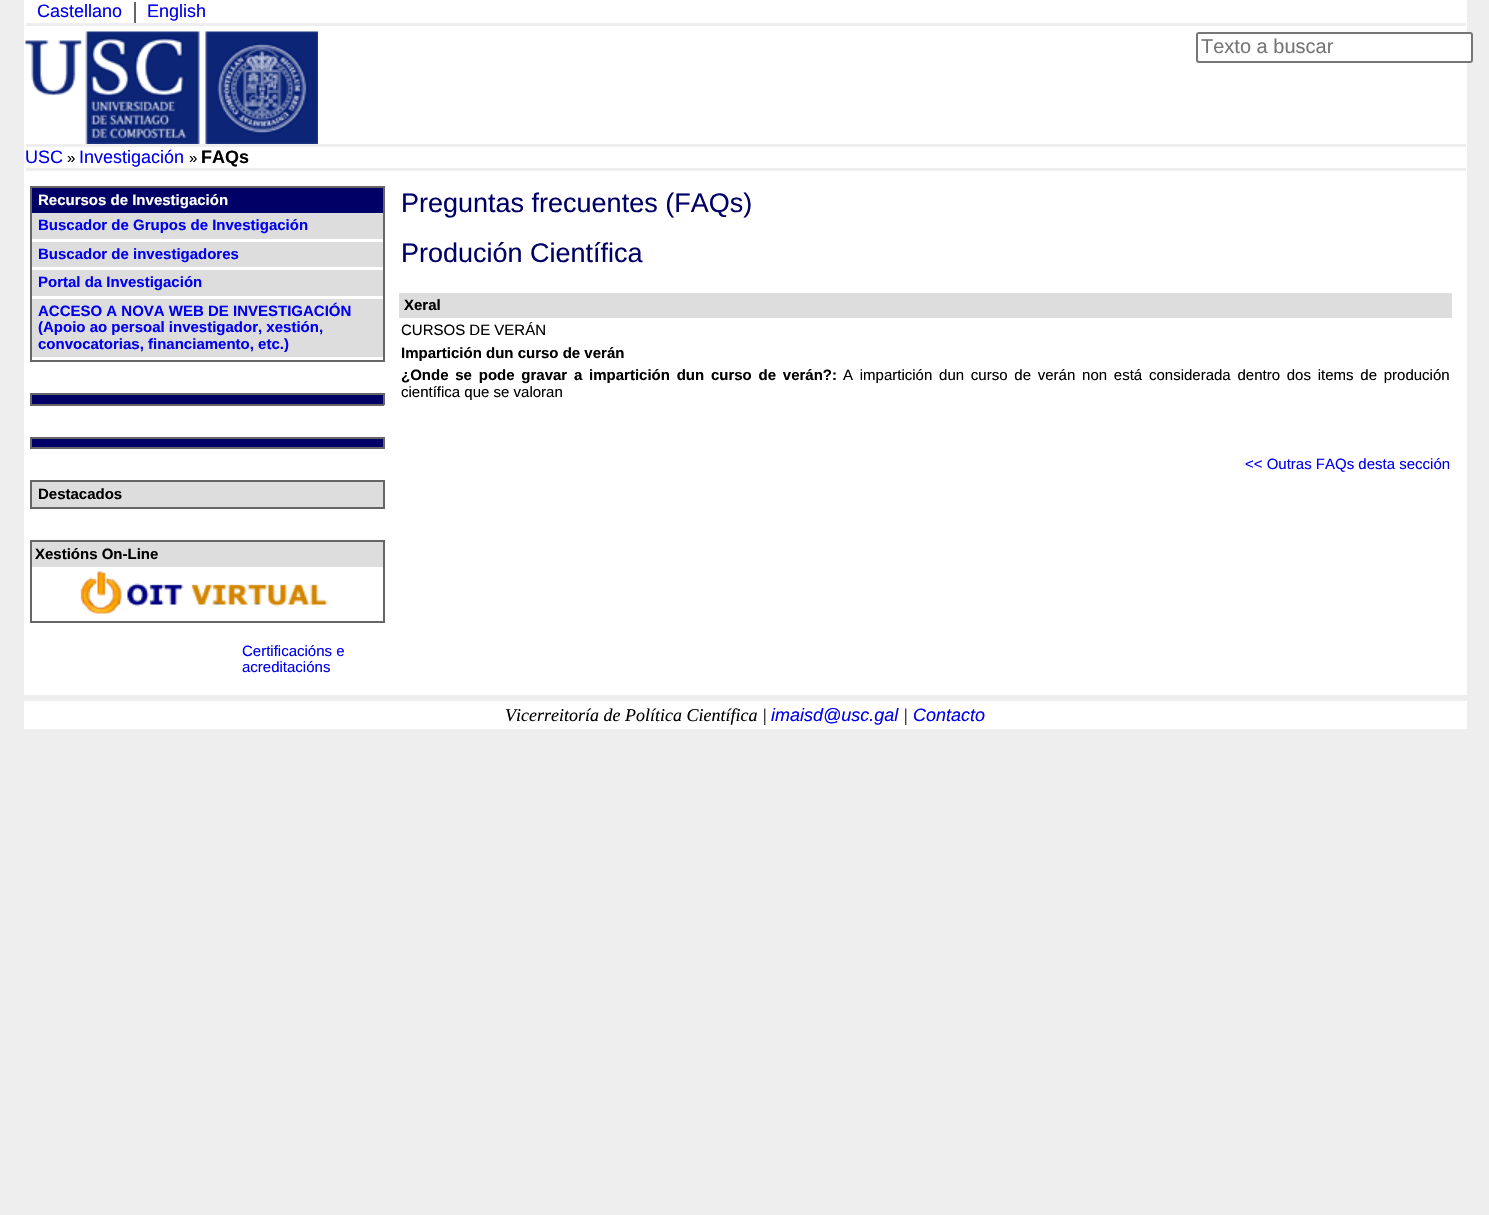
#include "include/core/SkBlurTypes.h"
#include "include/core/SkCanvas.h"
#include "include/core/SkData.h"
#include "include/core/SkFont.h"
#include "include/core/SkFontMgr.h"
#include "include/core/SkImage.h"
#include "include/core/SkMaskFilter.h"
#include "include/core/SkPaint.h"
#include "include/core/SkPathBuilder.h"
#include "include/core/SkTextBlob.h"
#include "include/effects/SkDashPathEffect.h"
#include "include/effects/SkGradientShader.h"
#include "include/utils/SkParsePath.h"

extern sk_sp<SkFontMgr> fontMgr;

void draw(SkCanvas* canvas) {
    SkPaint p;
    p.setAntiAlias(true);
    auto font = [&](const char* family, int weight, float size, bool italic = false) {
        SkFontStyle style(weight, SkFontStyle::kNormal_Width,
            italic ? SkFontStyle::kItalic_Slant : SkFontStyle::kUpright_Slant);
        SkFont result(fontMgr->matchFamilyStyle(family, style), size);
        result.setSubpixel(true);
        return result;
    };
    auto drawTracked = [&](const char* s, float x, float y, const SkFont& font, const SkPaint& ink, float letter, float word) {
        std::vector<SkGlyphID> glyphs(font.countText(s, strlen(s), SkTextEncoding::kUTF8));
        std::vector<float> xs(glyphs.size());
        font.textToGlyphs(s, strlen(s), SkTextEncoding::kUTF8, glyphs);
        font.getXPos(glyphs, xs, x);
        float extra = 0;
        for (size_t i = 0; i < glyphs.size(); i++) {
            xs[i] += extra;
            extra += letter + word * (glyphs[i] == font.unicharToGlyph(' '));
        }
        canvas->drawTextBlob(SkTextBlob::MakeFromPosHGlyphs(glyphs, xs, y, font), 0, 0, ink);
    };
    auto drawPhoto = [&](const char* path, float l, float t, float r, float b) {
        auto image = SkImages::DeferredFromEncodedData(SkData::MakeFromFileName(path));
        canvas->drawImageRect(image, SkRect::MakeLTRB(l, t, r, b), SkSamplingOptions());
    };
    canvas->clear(0xFFEEEEEE);
    p.setColor(0xFFFFFFFF);
    canvas->drawRect(SkRect::MakeLTRB(24, 0, 1467, 729), p);
    auto font1 = font("Liberation Sans", 400, 18);
    p.setColor(0xFF0000EE);
    canvas->drawString("Castellano", 37, 17, font1, p);
    p.setColor(0xFF666666);
    canvas->drawRect(SkRect::MakeLTRB(134, 2, 136, 23), p);
    p.setColor(0xFF0000EE);
    canvas->drawString("English", 147, 17, font1, p);
    p.setColor(0xFFEEEEEE);
    canvas->drawRect(SkRect::MakeLTRB(26, 23, 1466, 26), p);
    drawPhoto("media/1.png", 25, 31, 318, 144);
    p.setColor(0xFFFFFFFF);
    canvas->drawRoundRect(SkRect::MakeLTRB(1197, 33, 1472, 62), 2, 2, p);
    p.setStyle(SkPaint::kStroke_Style);
    p.setStrokeWidth(2);
    p.setColor(0xFF767676);
    canvas->drawRoundRect(SkRect::MakeLTRB(1197, 33, 1472, 62), 2, 2, p);
    auto font2 = font("Liberation Sans", 400, 20);
    p.setStyle(SkPaint::kFill_Style);
    p.setColor(0xFF757575);
    canvas->drawString("Texto a buscar", 1201, 53, font2, p);
    p.setColor(0xFFEEEEEE);
    canvas->drawRect(SkRect::MakeLTRB(26, 144, 1466, 147), p);
    p.setColor(0xFF0000EE);
    canvas->drawString("USC", 25, 163, font1, p);
    auto font3 = font("Liberation Sans", 400, 15);
    p.setColor(0xFF000000);
    canvas->drawString("»", 67, 163, font3, p);
    p.setColor(0xFF0000EE);
    canvas->drawString("Investigación", 79, 163, font1, p);
    p.setColor(0xFF000000);
    canvas->drawString("»", 189, 163, font3, p);
    auto font4 = font("Liberation Sans", 700, 18);
    canvas->drawString("FAQs", 201, 163, font4, p);
    {
        const struct { float l, t, r, b; SkColor color; } items[] = {
            {26, 168, 1466, 171, 0xFFEEEEEE},
            {30, 186, 384, 188, 0xFF666666},
            {383, 186, 385, 362, 0xFF666666},
            {30, 360, 384, 362, 0xFF666666},
            {30, 186, 32, 362, 0xFF666666},
            {32, 188, 383, 213, 0xFF000066},
        };
        for (auto [l, t, r, b, color] : items) {
            p.setColor(color);
            canvas->drawRect(SkRect::MakeLTRB(l, t, r, b), p);
        }
    }
    auto font5 = font("Liberation Sans", 700, 15);
    p.setColor(0xFFFFFFFF);
    canvas->drawString("Recursos de Investigación", 38, 205, font5, p);
    p.setColor(0xFFDDDDDD);
    canvas->drawRect(SkRect::MakeLTRB(32, 213, 383, 239), p);
    p.setColor(0xFF0000EE);
    canvas->drawString("Buscador de Grupos de Investigación", 38, 230, font5, p);
    p.setColor(0xFFDDDDDD);
    canvas->drawRect(SkRect::MakeLTRB(32, 242, 383, 267), p);
    p.setColor(0xFF0000EE);
    canvas->drawString("Buscador de investigadores", 38, 259, font5, p);
    p.setColor(0xFFDDDDDD);
    canvas->drawRect(SkRect::MakeLTRB(32, 270, 383, 296), p);
    p.setColor(0xFF0000EE);
    canvas->drawString("Portal da Investigación", 38, 287, font5, p);
    p.setColor(0xFFDDDDDD);
    canvas->drawRect(SkRect::MakeLTRB(32, 299, 383, 357), p);
    p.setColor(0xFF0000EE);
    {
        const struct { const char* s; float x, y; } items[] = {
            {"ACCESO A NOVA WEB DE INVESTIGACIÓN", 38, 316},
            {"(Apoio ao persoal investigador, xestión,", 38, 332},
            {"convocatorias, financiamento, etc.)", 38, 349},
        };
        for (auto [s, x, y] : items) {
            canvas->drawString(s, x, y, font5, p);
        }
    }
    {
        const struct { float l, t, r, b; SkColor color; } items[] = {
            {30, 393, 384, 395, 0xFF666666},
            {383, 393, 385, 405, 0xFF666666},
            {30, 404, 384, 406, 0xFF666666},
            {30, 393, 32, 405, 0xFF666666},
            {32, 395, 383, 404, 0xFF000066},
            {30, 437, 384, 439, 0xFF666666},
            {383, 437, 385, 449, 0xFF666666},
            {30, 447, 384, 449, 0xFF666666},
            {30, 437, 32, 449, 0xFF666666},
            {32, 439, 383, 447, 0xFF000066},
            {30, 480, 384, 482, 0xFF666666},
            {383, 480, 385, 509, 0xFF666666},
            {30, 507, 384, 509, 0xFF666666},
            {30, 480, 32, 509, 0xFF666666},
            {32, 482, 383, 507, 0xFFDDDDDD},
        };
        for (auto [l, t, r, b, color] : items) {
            p.setColor(color);
            canvas->drawRect(SkRect::MakeLTRB(l, t, r, b), p);
        }
    }
    p.setColor(0xFF000000);
    canvas->drawString("Destacados", 38, 499, font5, p);
    {
        const struct { float l, t, r, b; SkColor color; } items[] = {
            {30, 540, 384, 542, 0xFF666666},
            {383, 540, 385, 623, 0xFF666666},
            {30, 621, 384, 623, 0xFF666666},
            {30, 540, 32, 623, 0xFF666666},
            {32, 542, 383, 567, 0xFFDDDDDD},
        };
        for (auto [l, t, r, b, color] : items) {
            p.setColor(color);
            canvas->drawRect(SkRect::MakeLTRB(l, t, r, b), p);
        }
    }
    p.setColor(0xFF000000);
    canvas->drawString("Xestións On-Line", 35, 559, font5, p);
    drawPhoto("media/2.png", 80, 571, 328, 614);
    p.setColor(0xFF0000EE);
    canvas->drawString("Certificacións e", 242, 656, font3, p);
    canvas->drawString("acreditacións", 242, 672, font3, p);
    auto font6 = font("Liberation Sans", 400, 27);
    p.setColor(0xFF000066);
    canvas->drawString("Preguntas frecuentes (FAQs)", 401, 212, font6, p);
    canvas->drawString("Produción Científica", 401, 262, font6, p);
    p.setColor(0xFFDDDDDD);
    canvas->drawRect(SkRect::MakeLTRB(399, 293, 1452, 318), p);
    p.setColor(0xFF000000);
    canvas->drawString("Xeral", 404, 310, font5, p);
    canvas->drawString("CURSOS DE VERÁN", 401, 335, font3, p);
    canvas->drawString("Impartición dun curso de verán", 401, 358, font5, p);
    drawTracked("¿Onde se pode gravar a impartición dun curso de verán?:", 401, 380, font5, p, 0, 2.6f);
    drawTracked("A impartición dun curso de verán non está considerada dentro dos items de produción", 843, 380, font3, p, 0, 2.6f);
    canvas->drawString("científica que se valoran", 401, 397, font3, p);
    p.setColor(0xFF0000EE);
    canvas->drawString("<< Outras FAQs desta sección", 1245, 469, font3, p);
    p.setColor(0xFFEEEEEE);
    canvas->drawRect(SkRect::MakeLTRB(24, 695, 1467, 701), p);
    auto font7 = font("Liberation Serif", 400, 18, true);
    p.setColor(0xFF000000);
    canvas->drawString("Vicerreitoría de Política Científica |", 505, 721, font7, p);
    auto font8 = font("Liberation Sans", 400, 18, true);
    p.setColor(0xFF0000EE);
    canvas->drawString("imaisd@usc.gal", 771, 721, font8, p);
    p.setColor(0xFF000000);
    canvas->drawString("|", 903, 721, font7, p);
    p.setColor(0xFF0000EE);
    canvas->drawString("Contacto", 913, 721, font8, p);
}
